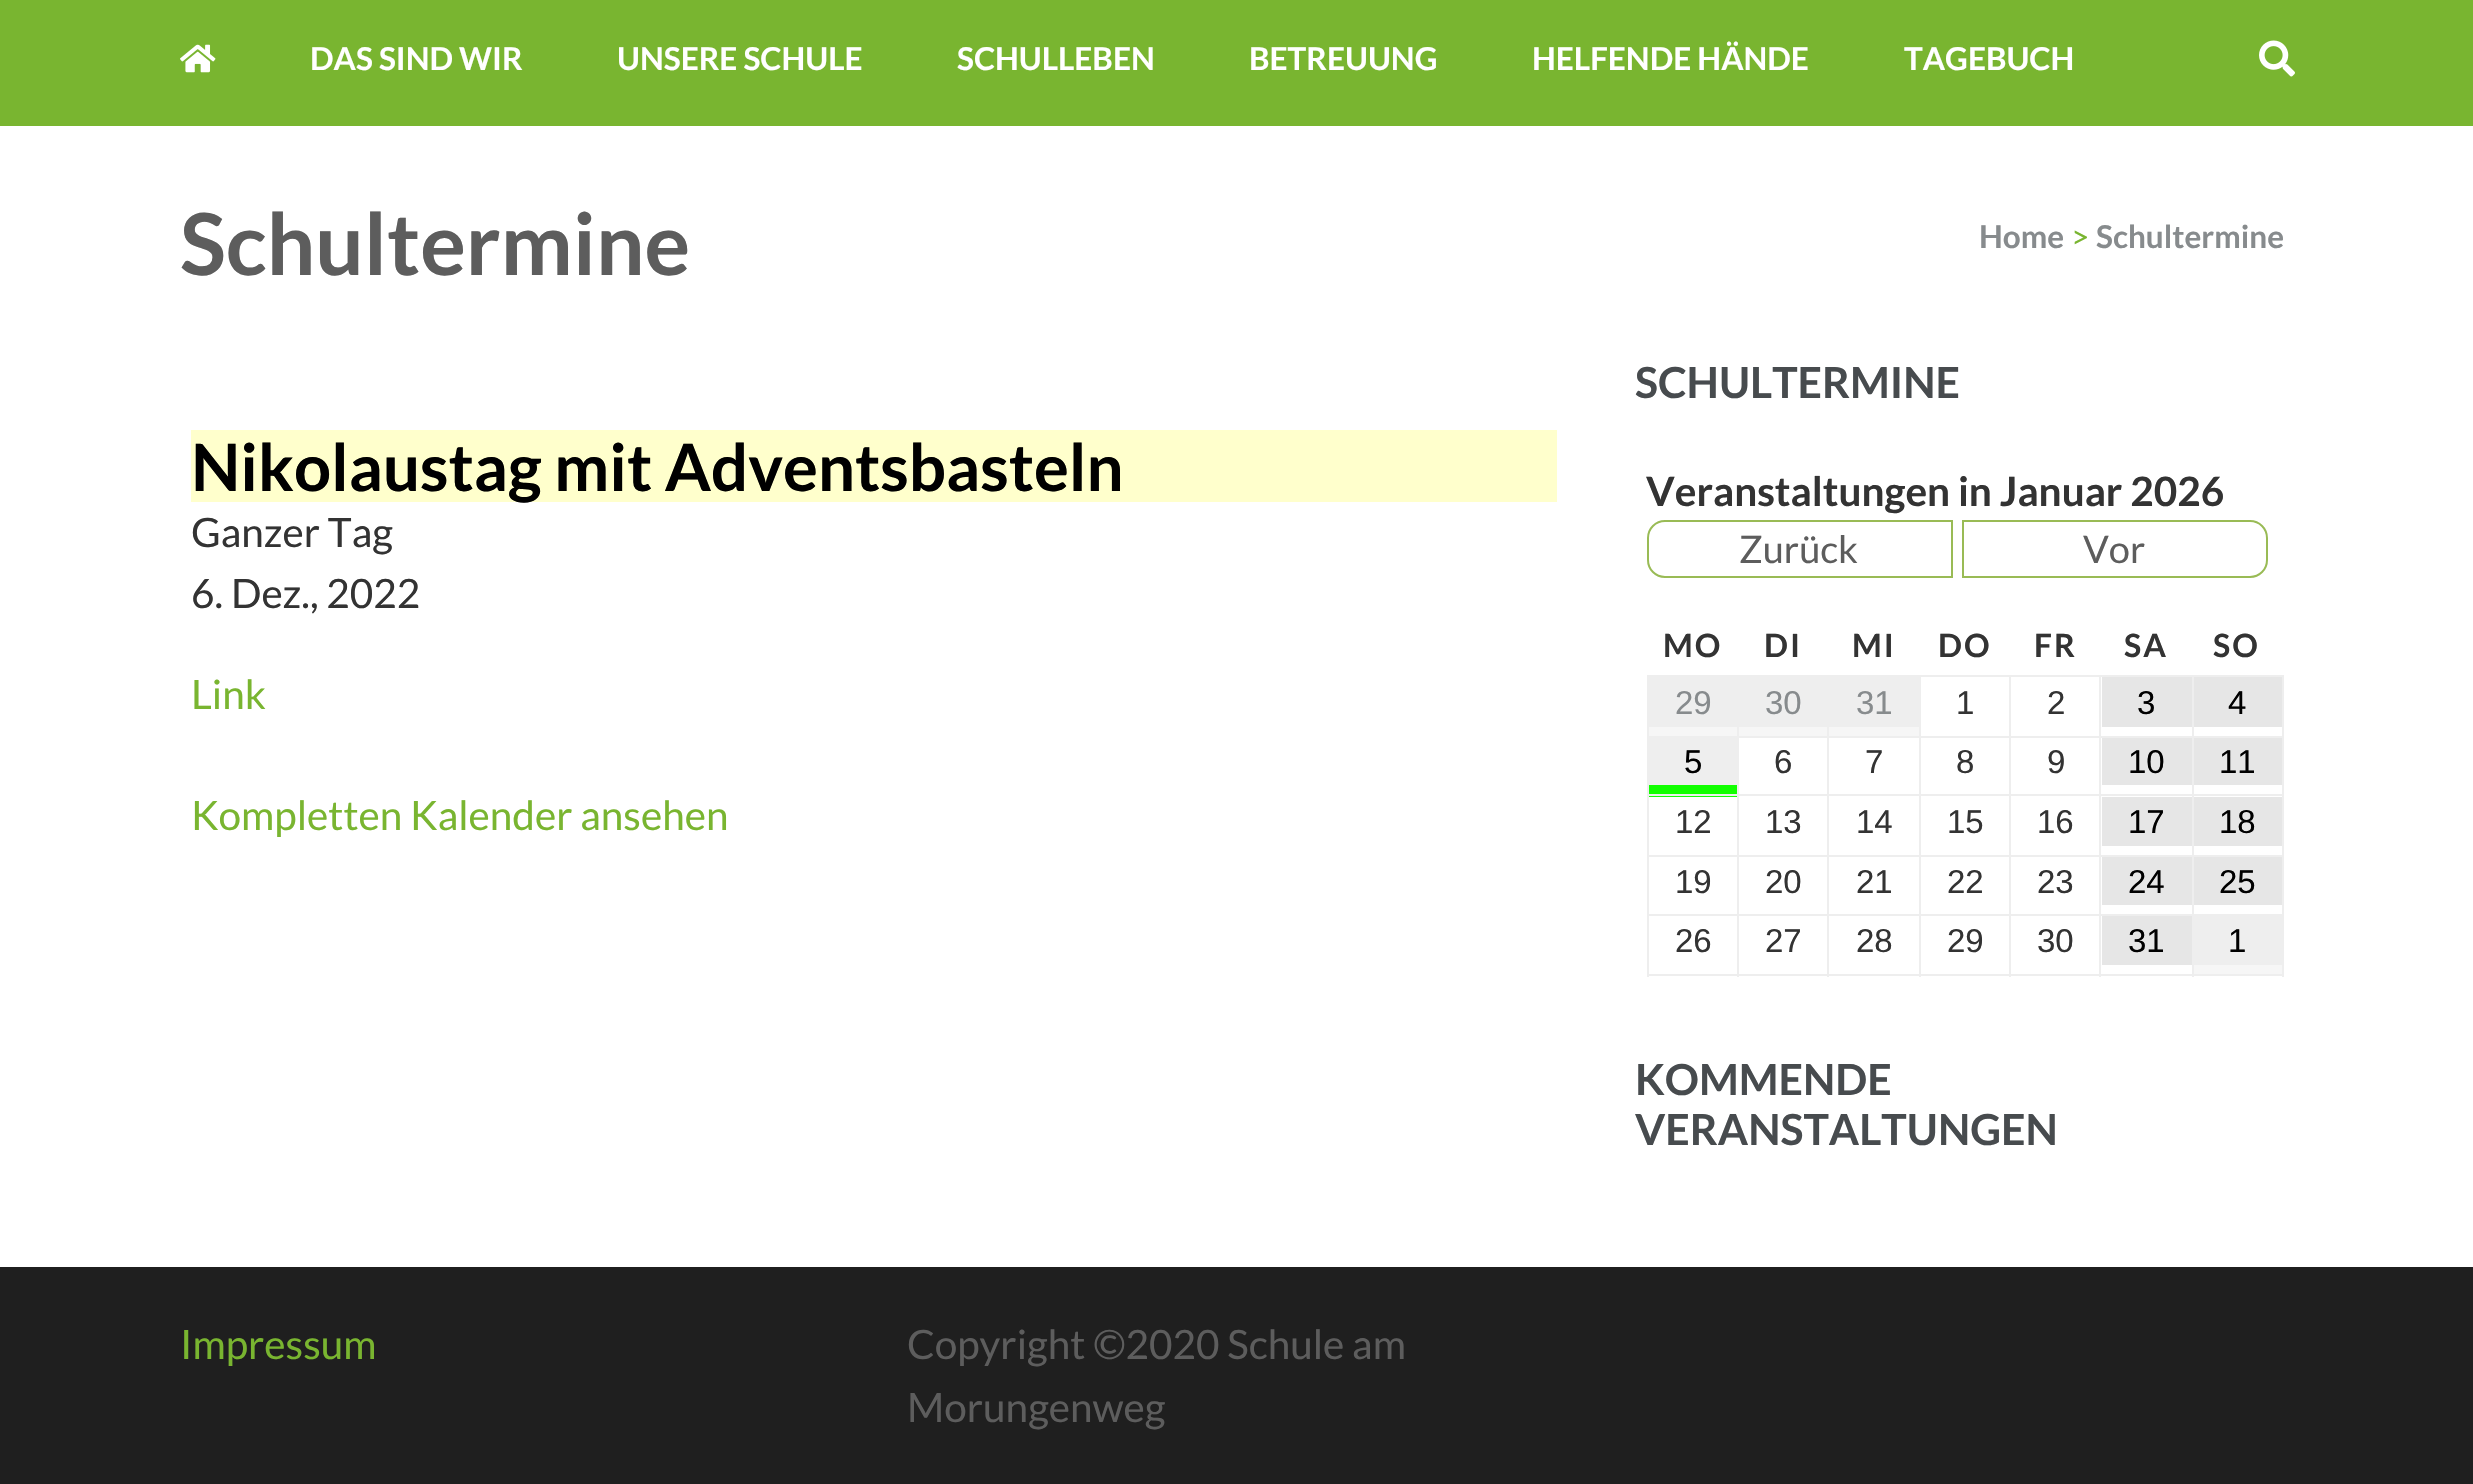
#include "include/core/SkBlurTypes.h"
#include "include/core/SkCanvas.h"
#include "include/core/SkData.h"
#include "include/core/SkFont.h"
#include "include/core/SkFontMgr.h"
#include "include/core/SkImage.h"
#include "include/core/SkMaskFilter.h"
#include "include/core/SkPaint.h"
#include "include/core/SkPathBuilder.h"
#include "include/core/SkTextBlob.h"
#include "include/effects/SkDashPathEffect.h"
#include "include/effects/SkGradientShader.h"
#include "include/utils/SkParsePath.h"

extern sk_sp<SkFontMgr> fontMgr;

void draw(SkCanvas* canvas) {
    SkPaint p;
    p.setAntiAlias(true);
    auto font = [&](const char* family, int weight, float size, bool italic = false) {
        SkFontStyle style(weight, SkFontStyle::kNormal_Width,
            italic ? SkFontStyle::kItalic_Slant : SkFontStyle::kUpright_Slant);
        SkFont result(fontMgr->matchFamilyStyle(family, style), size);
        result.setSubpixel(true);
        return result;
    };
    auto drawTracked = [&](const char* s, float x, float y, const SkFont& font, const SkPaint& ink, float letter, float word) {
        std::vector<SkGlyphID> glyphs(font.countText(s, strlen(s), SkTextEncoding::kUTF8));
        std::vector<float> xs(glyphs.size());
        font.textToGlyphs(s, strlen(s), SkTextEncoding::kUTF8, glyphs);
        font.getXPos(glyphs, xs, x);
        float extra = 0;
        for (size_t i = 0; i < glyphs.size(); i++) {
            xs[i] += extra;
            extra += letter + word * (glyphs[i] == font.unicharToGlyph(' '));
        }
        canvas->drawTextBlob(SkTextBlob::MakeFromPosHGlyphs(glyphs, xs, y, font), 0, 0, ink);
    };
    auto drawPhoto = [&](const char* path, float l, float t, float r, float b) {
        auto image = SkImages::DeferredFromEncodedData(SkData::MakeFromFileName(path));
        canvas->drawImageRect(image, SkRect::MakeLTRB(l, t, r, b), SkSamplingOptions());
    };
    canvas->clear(0xFFFFFFFF);
    p.setColor(0xFF79B530);
    canvas->drawRect(SkRect::MakeLTRB(0, 0, 2473, 126), p);
    drawPhoto("media/1.png", 180, 44, 216, 73);
    auto font1 = font("Lato", 700, 31.5f);
    p.setColor(0xFFFFFFFF);
    {
        const struct { const char* s; float x, y; } items[] = {
            {"DAS SIND WIR", 310, 70},
            {"UNSERE SCHULE", 617, 70},
            {"SCHULLEBEN", 957, 70},
            {"BETREUUNG", 1249, 70},
            {"HELFENDE HÄNDE", 1532, 70},
            {"TAGEBUCH", 1904, 70},
        };
        for (auto [s, x, y] : items) {
            canvas->drawString(s, x, y, font1, p);
        }
    }
    drawPhoto("media/2.png", 2259, 40, 2295, 77);
    auto font2 = font("Lato", 700, 85.5f);
    p.setColor(0xFF5D5D5D);
    canvas->drawString("Schultermine", 180, 275, font2, p);
    p.setColor(0xFF878B8D);
    canvas->drawString("Home", 1979, 248, font1, p);
    auto font3 = font("Lato", 400, 31.5f);
    p.setColor(0xFF79B530);
    canvas->drawString(">", 2071, 248, font3, p);
    p.setColor(0xFF878B8D);
    canvas->drawString("Schultermine", 2096, 248, font1, p);
    p.setColor(0xFFFFFFCC);
    canvas->drawRect(SkRect::MakeLTRB(191, 430, 1557, 502), p);
    auto font4 = font("Lato", 700, 65.25f);
    p.setColor(0xFF000000);
    canvas->drawString("Nikolaustag mit Adventsbasteln", 191, 491, font4, p);
    auto font5 = font("Lato", 400, 40.5f);
    p.setColor(0xFF333333);
    canvas->drawString("Ganzer Tag", 191, 547, font5, p);
    canvas->drawString("6. Dez., 2022", 191, 608, font5, p);
    p.setColor(0xFF79B530);
    canvas->drawString("Link", 191, 709, font5, p);
    canvas->drawString("Kompletten Kalender ansehen", 191, 830, font5, p);
    auto font6 = font("Lato", 700, 42.75f);
    p.setColor(0xFF474B4E);
    canvas->drawString("SCHULTERMINE", 1635, 398, font6, p);
    auto font7 = font("Lato", 700, 40.5f);
    p.setColor(0xFF333333);
    canvas->drawString("Veranstaltungen in Januar 2026", 1646, 506, font7, p);
    p.setStyle(SkPaint::kStroke_Style);
    p.setStrokeWidth(2);
    p.setColor(0xFF99BB55);
    canvas->drawPath(SkPathBuilder().moveTo(1665, 521).lineTo(1952, 521).lineTo(1952, 577).lineTo(1665, 577).cubicTo(1655.5f, 577, 1648, 569.5f, 1648, 560).lineTo(1648, 538).cubicTo(1648, 528.5f, 1655.5f, 521, 1665, 521).close().detach(), p);
    auto font8 = font("Lato", 400, 38);
    p.setStyle(SkPaint::kFill_Style);
    p.setColor(0xFF5D5D5D);
    canvas->drawString("Zurück", 1739, 563, font8, p);
    p.setStyle(SkPaint::kStroke_Style);
    p.setColor(0xFF99BB55);
    canvas->drawPath(SkPathBuilder().moveTo(1963, 521).lineTo(2250, 521).cubicTo(2259.5f, 521, 2267, 528.5f, 2267, 538).lineTo(2267, 560).cubicTo(2267, 569.5f, 2259.5f, 577, 2250, 577).lineTo(1963, 577).close().detach(), p);
    p.setStyle(SkPaint::kFill_Style);
    p.setColor(0xFF5D5D5D);
    canvas->drawString("Vor", 2083, 563, font8, p);
    auto font9 = font("Lato", 700, 32);
    p.setColor(0xFF333333);
    {
        const struct { const char* s; float x, y; } items[] = {
            {"MO", 1663, 657},
            {"DI", 1764, 657},
            {"MI", 1852, 657},
            {"DO", 1938, 657},
            {"FR", 2034, 657},
            {"SA", 2124, 657},
            {"SO", 2213, 657},
        };
        for (auto [s, x, y] : items) {
            drawTracked(s, x, y, font9, p, 2, 0);
        }
    }
    {
        const struct { float l, t, r, b; SkColor color; } items[] = {
            {1649, 727, 1737, 736, 0xFFF6F6F6},
            {2192, 675, 2284, 677, 0xFFEEEEEE},
            {2192, 736, 2284, 738, 0xFFEEEEEE},
            {2192, 794, 2284, 796, 0xFFEEEEEE},
            {2192, 855, 2284, 857, 0xFFEEEEEE},
            {2192, 914, 2284, 916, 0xFFEEEEEE},
            {2282, 914, 2284, 977, 0xFFEEEEEE},
            {2192, 974, 2284, 976, 0xFFEEEEEE},
            {2192, 914, 2194, 977, 0xFFEEEEEE},
            {2099, 914, 2194, 916, 0xFFEEEEEE},
            {2192, 855, 2194, 916, 0xFFEEEEEE},
            {2099, 855, 2194, 857, 0xFFEEEEEE},
            {2192, 794, 2194, 857, 0xFFEEEEEE},
            {2099, 794, 2194, 796, 0xFFEEEEEE},
            {2192, 736, 2194, 797, 0xFFEEEEEE},
            {2099, 736, 2194, 738, 0xFFEEEEEE},
            {2192, 675, 2194, 738, 0xFFEEEEEE},
            {2099, 675, 2194, 677, 0xFFEEEEEE},
            {2099, 974, 2194, 976, 0xFFEEEEEE},
            {2099, 914, 2101, 977, 0xFFEEEEEE},
            {2009, 914, 2102, 916, 0xFFEEEEEE},
            {2099, 855, 2101, 916, 0xFFEEEEEE},
            {2009, 855, 2102, 857, 0xFFEEEEEE},
            {2099, 794, 2101, 857, 0xFFEEEEEE},
            {2009, 794, 2102, 796, 0xFFEEEEEE},
            {2099, 736, 2101, 797, 0xFFEEEEEE},
            {2009, 736, 2102, 738, 0xFFEEEEEE},
            {2099, 675, 2101, 738, 0xFFEEEEEE},
            {2009, 675, 2102, 677, 0xFFEEEEEE},
            {2009, 974, 2102, 976, 0xFFEEEEEE},
            {2009, 914, 2011, 977, 0xFFEEEEEE},
            {1919, 914, 2012, 916, 0xFFEEEEEE},
            {2009, 855, 2011, 916, 0xFFEEEEEE},
            {1919, 855, 2012, 857, 0xFFEEEEEE},
            {2009, 794, 2011, 857, 0xFFEEEEEE},
            {1919, 794, 2012, 796, 0xFFEEEEEE},
            {2009, 736, 2011, 797, 0xFFEEEEEE},
            {1919, 736, 2012, 738, 0xFFEEEEEE},
            {2009, 675, 2011, 738, 0xFFEEEEEE},
            {1919, 675, 2012, 677, 0xFFEEEEEE},
            {1919, 974, 2012, 976, 0xFFEEEEEE},
            {1919, 914, 1921, 977, 0xFFEEEEEE},
            {1827, 914, 1922, 916, 0xFFEEEEEE},
            {1919, 855, 1921, 916, 0xFFEEEEEE},
            {1827, 855, 1922, 857, 0xFFEEEEEE},
            {1919, 794, 1921, 857, 0xFFEEEEEE},
            {1827, 794, 1922, 796, 0xFFEEEEEE},
            {1919, 736, 1921, 797, 0xFFEEEEEE},
            {1827, 736, 1922, 738, 0xFFEEEEEE},
            {1919, 675, 1921, 738, 0xFFEEEEEE},
            {1827, 675, 1922, 677, 0xFFEEEEEE},
            {1827, 974, 1922, 976, 0xFFEEEEEE},
            {1827, 914, 1829, 977, 0xFFEEEEEE},
            {1737, 914, 1829, 916, 0xFFEEEEEE},
            {1827, 855, 1829, 916, 0xFFEEEEEE},
            {1737, 855, 1829, 857, 0xFFEEEEEE},
            {1827, 794, 1829, 857, 0xFFEEEEEE},
            {1737, 794, 1829, 796, 0xFFEEEEEE},
            {1827, 736, 1829, 797, 0xFFEEEEEE},
            {1737, 736, 1829, 738, 0xFFEEEEEE},
            {1827, 675, 1829, 738, 0xFFEEEEEE},
            {1737, 675, 1829, 677, 0xFFEEEEEE},
            {1649, 785, 1737, 797, 0xFF11FF00},
            {1737, 974, 1829, 976, 0xFFEEEEEE},
            {1737, 914, 1739, 977, 0xFFEEEEEE},
            {1647, 914, 1739, 916, 0xFFEEEEEE},
            {1737, 855, 1739, 916, 0xFFEEEEEE},
            {1647, 855, 1739, 857, 0xFFEEEEEE},
            {1737, 794, 1739, 857, 0xFFEEEEEE},
            {1647, 794, 1739, 796, 0xFFEEEEEE},
            {1737, 736, 1739, 797, 0xFFEEEEEE},
            {1647, 736, 1739, 738, 0xFFEEEEEE},
            {1737, 675, 1739, 738, 0xFFEEEEEE},
            {1647, 675, 1739, 677, 0xFFEEEEEE},
            {1647, 974, 1739, 976, 0xFFEEEEEE},
            {1647, 914, 1649, 977, 0xFFEEEEEE},
            {1647, 855, 1649, 916, 0xFFEEEEEE},
            {1647, 794, 1649, 857, 0xFFEEEEEE},
            {1647, 736, 1649, 797, 0xFFEEEEEE},
            {1647, 675, 1649, 738, 0xFFEEEEEE},
            {1649, 677, 1737, 727, 0xFFEEEEEE},
        };
        for (auto [l, t, r, b, color] : items) {
            p.setColor(color);
            canvas->drawRect(SkRect::MakeLTRB(l, t, r, b), p);
        }
    }
    auto font10 = font("Liberation Sans", 400, 33);
    p.setColor(0xFF878B8D);
    canvas->drawString("29", 1675, 714, font10, p);
    p.setColor(0xFFF6F6F6);
    canvas->drawRect(SkRect::MakeLTRB(1739, 727, 1827, 736), p);
    p.setColor(0xFFEEEEEE);
    canvas->drawRect(SkRect::MakeLTRB(1739, 677, 1827, 727), p);
    p.setColor(0xFF878B8D);
    canvas->drawString("30", 1765, 714, font10, p);
    p.setColor(0xFFF6F6F6);
    canvas->drawRect(SkRect::MakeLTRB(1829, 727, 1919, 736), p);
    p.setColor(0xFFEEEEEE);
    canvas->drawRect(SkRect::MakeLTRB(1829, 677, 1919, 727), p);
    p.setColor(0xFF878B8D);
    canvas->drawString("31", 1856, 714, font10, p);
    p.setColor(0xFF333333);
    canvas->drawString("1", 1956, 714, font10, p);
    canvas->drawString("2", 2047, 714, font10, p);
    p.setColor(0xFFE6E6E6);
    canvas->drawRect(SkRect::MakeLTRB(2102, 677, 2192, 727), p);
    p.setColor(0xFF000000);
    canvas->drawString("3", 2137, 714, font10, p);
    {
        const struct { float l, t, r, b; SkColor color; } items[] = {
            {2282, 855, 2284, 916, 0xFFEEEEEE},
            {2282, 794, 2284, 857, 0xFFEEEEEE},
            {2282, 736, 2284, 797, 0xFFEEEEEE},
            {2282, 675, 2284, 738, 0xFFEEEEEE},
            {2194, 677, 2282, 727, 0xFFE6E6E6},
        };
        for (auto [l, t, r, b, color] : items) {
            p.setColor(color);
            canvas->drawRect(SkRect::MakeLTRB(l, t, r, b), p);
        }
    }
    p.setColor(0xFF000000);
    canvas->drawString("4", 2228, 714, font10, p);
    p.setColor(0xFFEEEEEE);
    canvas->drawRect(SkRect::MakeLTRB(1649, 738, 1737, 785), p);
    p.setColor(0xFF000000);
    canvas->drawString("5", 1684, 773, font10, p);
    p.setColor(0xFF333333);
    {
        const struct { const char* s; float x, y; } items[] = {
            {"6", 1774, 773},
            {"7", 1865, 773},
            {"8", 1956, 773},
            {"9", 2047, 773},
        };
        for (auto [s, x, y] : items) {
            canvas->drawString(s, x, y, font10, p);
        }
    }
    p.setColor(0xFFE6E6E6);
    canvas->drawRect(SkRect::MakeLTRB(2102, 738, 2192, 785), p);
    p.setColor(0xFF000000);
    canvas->drawString("10", 2128, 773, font10, p);
    p.setColor(0xFFE6E6E6);
    canvas->drawRect(SkRect::MakeLTRB(2194, 738, 2282, 785), p);
    p.setColor(0xFF000000);
    canvas->drawString("11", 2219, 773, font10, p);
    p.setColor(0xFF333333);
    {
        const struct { const char* s; float x, y; } items[] = {
            {"12", 1675, 833},
            {"13", 1765, 833},
            {"14", 1856, 833},
            {"15", 1947, 833},
            {"16", 2037, 833},
        };
        for (auto [s, x, y] : items) {
            canvas->drawString(s, x, y, font10, p);
        }
    }
    p.setColor(0xFFE6E6E6);
    canvas->drawRect(SkRect::MakeLTRB(2102, 797, 2192, 846), p);
    p.setColor(0xFF000000);
    canvas->drawString("17", 2128, 833, font10, p);
    p.setColor(0xFFE6E6E6);
    canvas->drawRect(SkRect::MakeLTRB(2194, 797, 2282, 846), p);
    p.setColor(0xFF000000);
    canvas->drawString("18", 2219, 833, font10, p);
    p.setColor(0xFF333333);
    {
        const struct { const char* s; float x, y; } items[] = {
            {"19", 1675, 893},
            {"20", 1765, 893},
            {"21", 1856, 893},
            {"22", 1947, 893},
            {"23", 2037, 893},
        };
        for (auto [s, x, y] : items) {
            canvas->drawString(s, x, y, font10, p);
        }
    }
    p.setColor(0xFFE6E6E6);
    canvas->drawRect(SkRect::MakeLTRB(2102, 857, 2192, 905), p);
    p.setColor(0xFF000000);
    canvas->drawString("24", 2128, 893, font10, p);
    p.setColor(0xFFE6E6E6);
    canvas->drawRect(SkRect::MakeLTRB(2194, 857, 2282, 905), p);
    p.setColor(0xFF000000);
    canvas->drawString("25", 2219, 893, font10, p);
    p.setColor(0xFF333333);
    {
        const struct { const char* s; float x, y; } items[] = {
            {"26", 1675, 952},
            {"27", 1765, 952},
            {"28", 1856, 952},
            {"29", 1947, 952},
            {"30", 2037, 952},
        };
        for (auto [s, x, y] : items) {
            canvas->drawString(s, x, y, font10, p);
        }
    }
    p.setColor(0xFFE6E6E6);
    canvas->drawRect(SkRect::MakeLTRB(2102, 916, 2192, 965), p);
    p.setColor(0xFF000000);
    canvas->drawString("31", 2128, 952, font10, p);
    p.setColor(0xFFF6F6F6);
    canvas->drawRect(SkRect::MakeLTRB(2194, 965, 2282, 974), p);
    p.setColor(0xFFEEEEEE);
    canvas->drawRect(SkRect::MakeLTRB(2194, 916, 2282, 965), p);
    p.setColor(0xFF000000);
    canvas->drawString("1", 2228, 952, font10, p);
    p.setColor(0xFF474B4E);
    canvas->drawString("KOMMENDE", 1635, 1095, font6, p);
    canvas->drawString("VERANSTALTUNGEN", 1635, 1145, font6, p);
    p.setColor(0xFF1F1F1F);
    canvas->drawRect(SkRect::MakeLTRB(0, 1267, 2473, 1484), p);
    p.setColor(0xFF79B530);
    canvas->drawString("Impressum", 180, 1359, font5, p);
    p.setColor(0xFF5D5D5D);
    canvas->drawString("Copyright ©2020 Schule am", 907, 1359, font5, p);
    canvas->drawString("Morungenweg", 907, 1422, font5, p);
}
